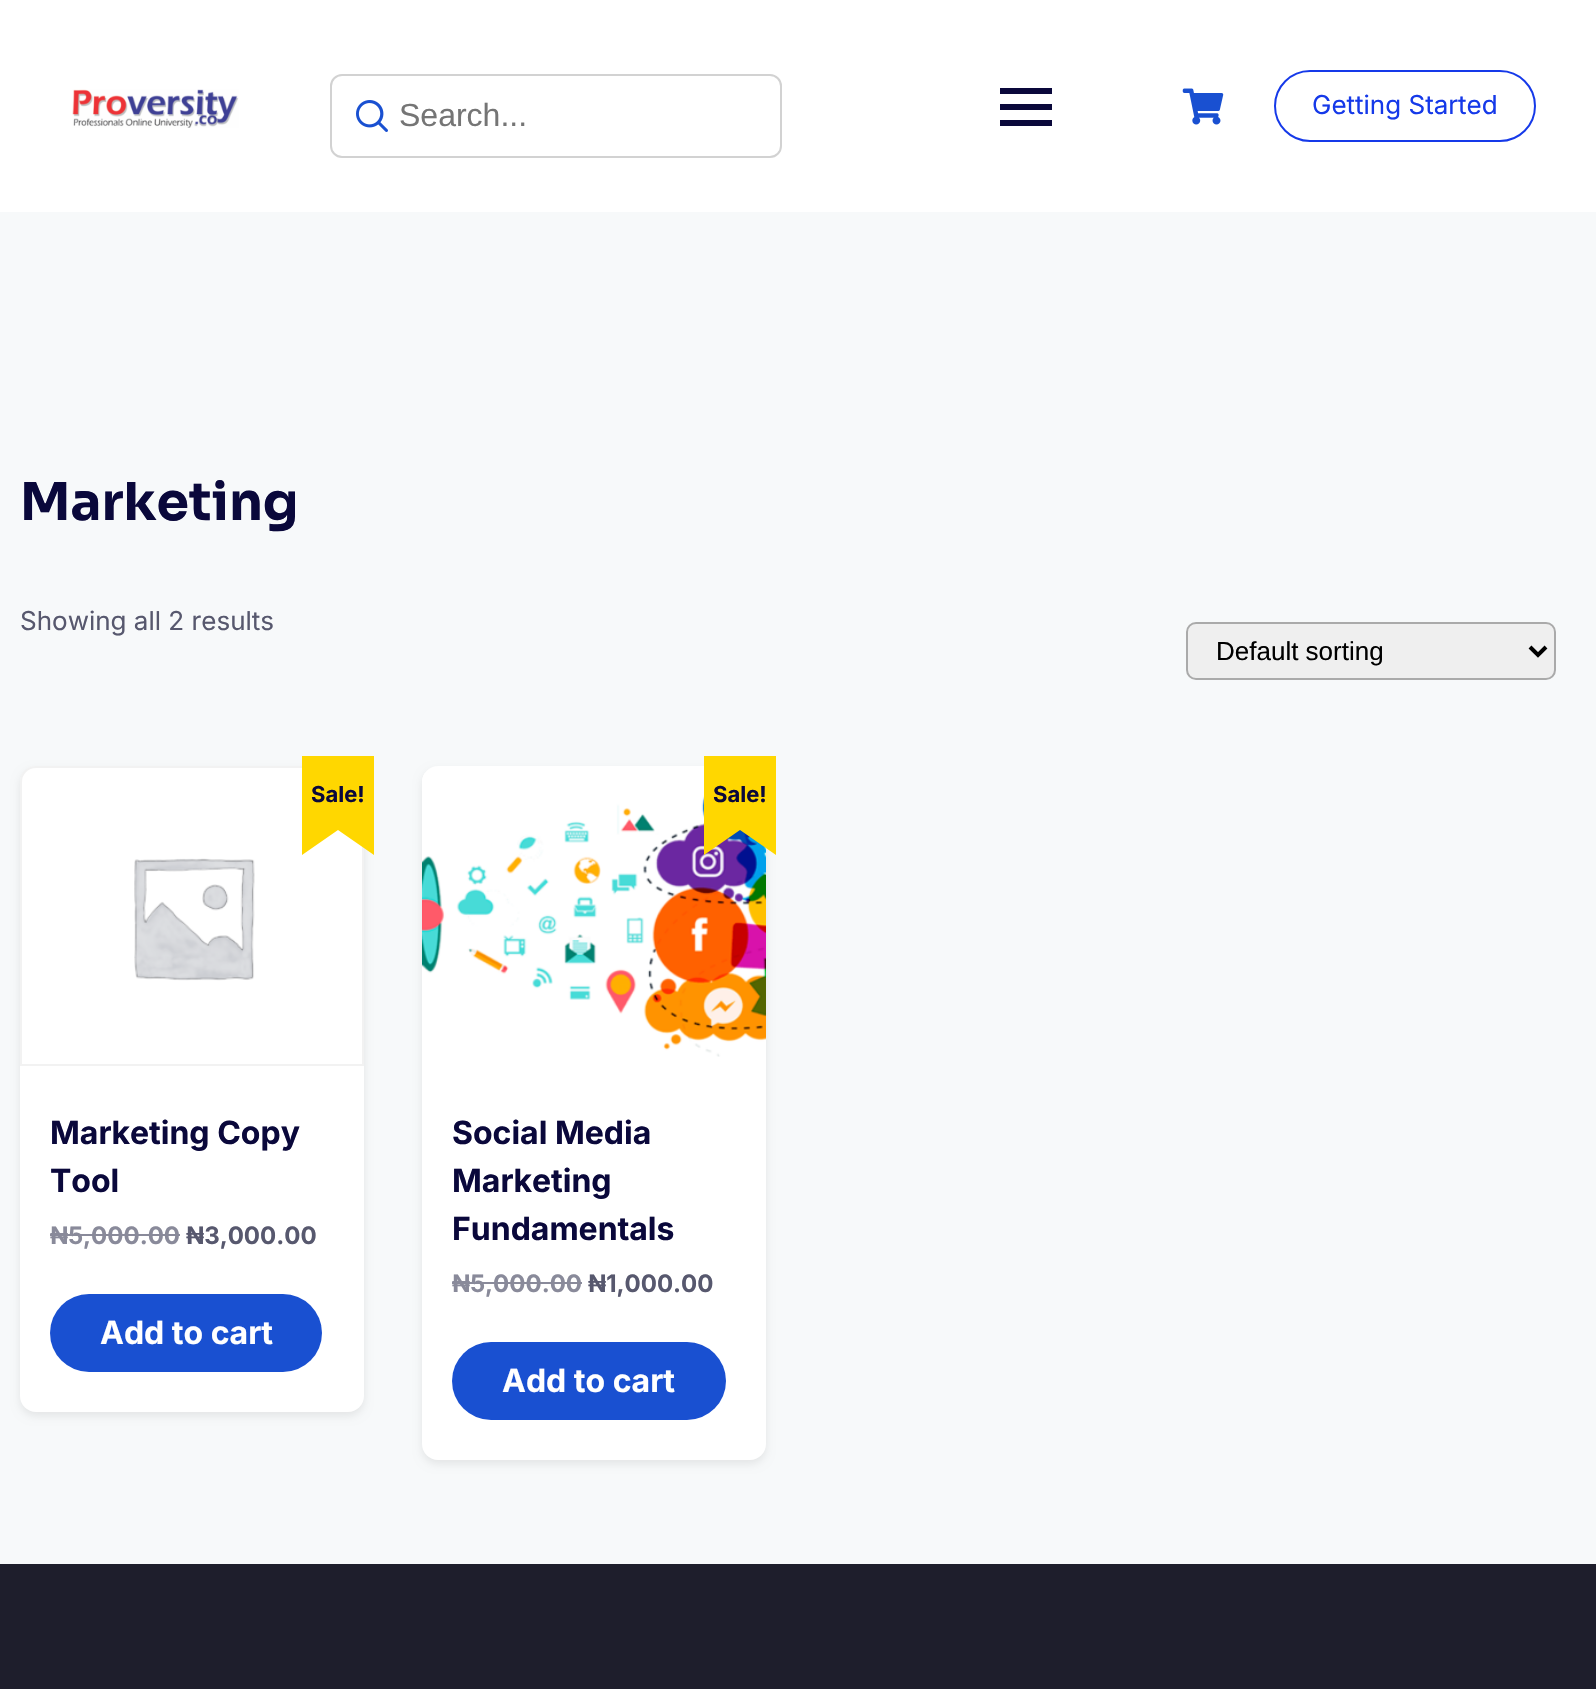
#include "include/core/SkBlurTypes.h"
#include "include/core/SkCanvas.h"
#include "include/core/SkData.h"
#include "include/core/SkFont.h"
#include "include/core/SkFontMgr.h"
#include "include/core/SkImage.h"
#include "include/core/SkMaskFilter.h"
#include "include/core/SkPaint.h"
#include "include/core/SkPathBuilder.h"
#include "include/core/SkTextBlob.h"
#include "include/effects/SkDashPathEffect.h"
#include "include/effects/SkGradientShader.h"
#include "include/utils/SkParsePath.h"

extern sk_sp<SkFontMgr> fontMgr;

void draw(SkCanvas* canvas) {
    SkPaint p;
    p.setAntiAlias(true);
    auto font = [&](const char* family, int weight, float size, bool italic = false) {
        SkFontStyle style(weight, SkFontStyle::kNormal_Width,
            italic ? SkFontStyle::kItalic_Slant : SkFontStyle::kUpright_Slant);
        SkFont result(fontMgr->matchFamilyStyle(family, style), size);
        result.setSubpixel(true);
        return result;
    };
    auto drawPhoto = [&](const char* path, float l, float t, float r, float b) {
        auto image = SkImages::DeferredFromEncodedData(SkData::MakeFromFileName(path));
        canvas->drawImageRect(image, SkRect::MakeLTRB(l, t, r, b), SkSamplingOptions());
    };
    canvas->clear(0xFFF7F9FA);
    p.setColor(0xFFFFFFFF);
    canvas->drawRect(SkRect::MakeLTRB(0, 0, 1596, 212), p);
    drawPhoto("media/1.png", 72, 89, 239, 128);
    drawPhoto("media/2.png", 356, 100, 388, 132);
    p.setStyle(SkPaint::kStroke_Style);
    p.setStrokeWidth(2);
    p.setColor(0xFFD2D2D2);
    canvas->drawRoundRect(SkRect::MakeLTRB(331, 75, 781, 157), 11, 11, p);
    auto font1 = font("Liberation Sans", 400, 32);
    p.setStyle(SkPaint::kFill_Style);
    p.setColor(0xFF757575);
    canvas->drawString("Search...", 399, 126, font1, p);
    {
        const struct { float l, t, r, b; SkColor color; } items[] = {
            {1000, 104, 1052, 110, 0xFF0A083B},
            {1000, 88, 1052, 94, 0xFF0A083B},
            {1000, 120, 1052, 126, 0xFF0A083B},
        };
        for (auto [l, t, r, b, color] : items) {
            p.setColor(color);
            canvas->drawRect(SkRect::MakeLTRB(l, t, r, b), p);
        }
    }
    drawPhoto("media/3.png", 1182, 88, 1224, 125);
    p.setStyle(SkPaint::kStroke_Style);
    p.setColor(0xFF1539E9);
    canvas->drawRoundRect(SkRect::MakeLTRB(1275, 71, 1535, 141), 35, 35, p);
    auto font2 = font("Inter", 400, 26);
    p.setStyle(SkPaint::kFill_Style);
    canvas->drawString("Getting Started", 1312, 114, font2, p);
    auto font3 = font("Sora", 700, 52);
    p.setColor(0xFF0A083B);
    canvas->drawString("Marketing", 20, 520, font3, p);
    p.setColor(0xFF57586E);
    canvas->drawString("Showing all 2 results", 20, 630, font2, p);
    p.setColor(0xFFEFEFEF);
    canvas->drawRoundRect(SkRect::MakeLTRB(1187, 623, 1555, 679), 9, 9, p);
    p.setStyle(SkPaint::kStroke_Style);
    p.setColor(0xFFAAAAAA);
    canvas->drawRoundRect(SkRect::MakeLTRB(1187, 623, 1555, 679), 9, 9, p);
    p.setStrokeWidth(4);
    p.setColor(0xFF000000);
    canvas->drawPath(SkPathBuilder().moveTo(1530, 647).lineTo(1538, 655).lineTo(1546, 647).detach(), p);
    auto font4 = font("Liberation Sans", 400, 26);
    p.setStyle(SkPaint::kFill_Style);
    canvas->drawString("Default sorting", 1216, 660, font4, p);
    p.setColor(0x14000000);
    p.setMaskFilter(SkMaskFilter::MakeBlur(kNormal_SkBlurStyle, 4));
    canvas->drawRoundRect(SkRect::MakeLTRB(20, 770, 364, 1416), 16, 16, p);
    p.setMaskFilter(nullptr);
    p.setColor(0xFFFFFFFF);
    canvas->drawRoundRect(SkRect::MakeLTRB(20, 766, 364, 1412), 16, 16, p);
    p.setStyle(SkPaint::kStroke_Style);
    p.setStrokeWidth(2);
    p.setColor(0xFFF2F2F2);
    canvas->drawPath(SkPathBuilder().moveTo(36, 767).lineTo(348, 767).cubicTo(356.5f, 767, 363, 773.5f, 363, 782).lineTo(363, 1065).lineTo(21, 1065).lineTo(21, 782).cubicTo(21, 773.5f, 27.5f, 767, 36, 767).close().detach(), p);
    drawPhoto("media/4.png", 134, 858, 255, 981);
    p.setStyle(SkPaint::kFill_Style);
    p.setColor(0xFFFFD700);
    canvas->drawPath(SkPathBuilder().moveTo(374, 855).lineTo(338, 830).lineTo(302, 855).lineTo(302, 756).lineTo(374, 756).close().detach(), p);
    auto font5 = font("Inter", 700, 22);
    p.setColor(0xFF0A083B);
    canvas->drawString("Sale!", 311, 802, font5, p);
    auto font6 = font("Inter", 700, 32);
    canvas->drawString("Marketing Copy", 50, 1144, font6, p);
    canvas->drawString("Tool", 50, 1192, font6, p);
    auto font7 = font("Inter", 700, 24);
    p.setColor(0xFF898A9A);
    canvas->drawString("₦5,000.00", 50, 1244, font7, p);
    canvas->drawRect(SkRect::MakeLTRB(50, 1234, 180, 1236), p);
    p.setColor(0xFF57586E);
    canvas->drawString("₦3,000.00", 186, 1244, font7, p);
    p.setColor(0xFF1950D1);
    canvas->drawRoundRect(SkRect::MakeLTRB(50, 1294, 322, 1372), 39, 39, p);
    p.setColor(0xFFFFFFFF);
    canvas->drawString("Add to cart", 100, 1344, font6, p);
    p.setColor(0x14000000);
    p.setMaskFilter(SkMaskFilter::MakeBlur(kNormal_SkBlurStyle, 4));
    canvas->drawRoundRect(SkRect::MakeLTRB(422, 770, 766, 1464), 16, 16, p);
    p.setMaskFilter(nullptr);
    p.setColor(0xFFFFFFFF);
    canvas->drawRoundRect(SkRect::MakeLTRB(422, 766, 766, 1460), 16, 16, p);
    drawPhoto("media/5.png", 422, 773, 766, 1057);
    p.setColor(0xFFFFD700);
    canvas->drawPath(SkPathBuilder().moveTo(776, 855).lineTo(740, 830).lineTo(704, 855).lineTo(704, 756).lineTo(776, 756).close().detach(), p);
    p.setColor(0xFF0A083B);
    canvas->drawString("Sale!", 713, 802, font5, p);
    {
        const struct { const char* s; float x, y; } items[] = {
            {"Social Media", 452, 1144},
            {"Marketing", 452, 1192},
            {"Fundamentals", 452, 1240},
        };
        for (auto [s, x, y] : items) {
            canvas->drawString(s, x, y, font6, p);
        }
    }
    p.setColor(0xFF898A9A);
    canvas->drawString("₦5,000.00", 452, 1292, font7, p);
    canvas->drawRect(SkRect::MakeLTRB(452, 1282, 582, 1284), p);
    p.setColor(0xFF57586E);
    canvas->drawString("₦1,000.00", 588, 1292, font7, p);
    p.setColor(0xFF1950D1);
    canvas->drawRoundRect(SkRect::MakeLTRB(452, 1342, 726, 1420), 39, 39, p);
    p.setColor(0xFFFFFFFF);
    canvas->drawString("Add to cart", 502, 1392, font6, p);
    p.setColor(0xFF1E1E2C);
    canvas->drawRect(SkRect::MakeLTRB(0, 1564, 1596, 1689), p);
}
